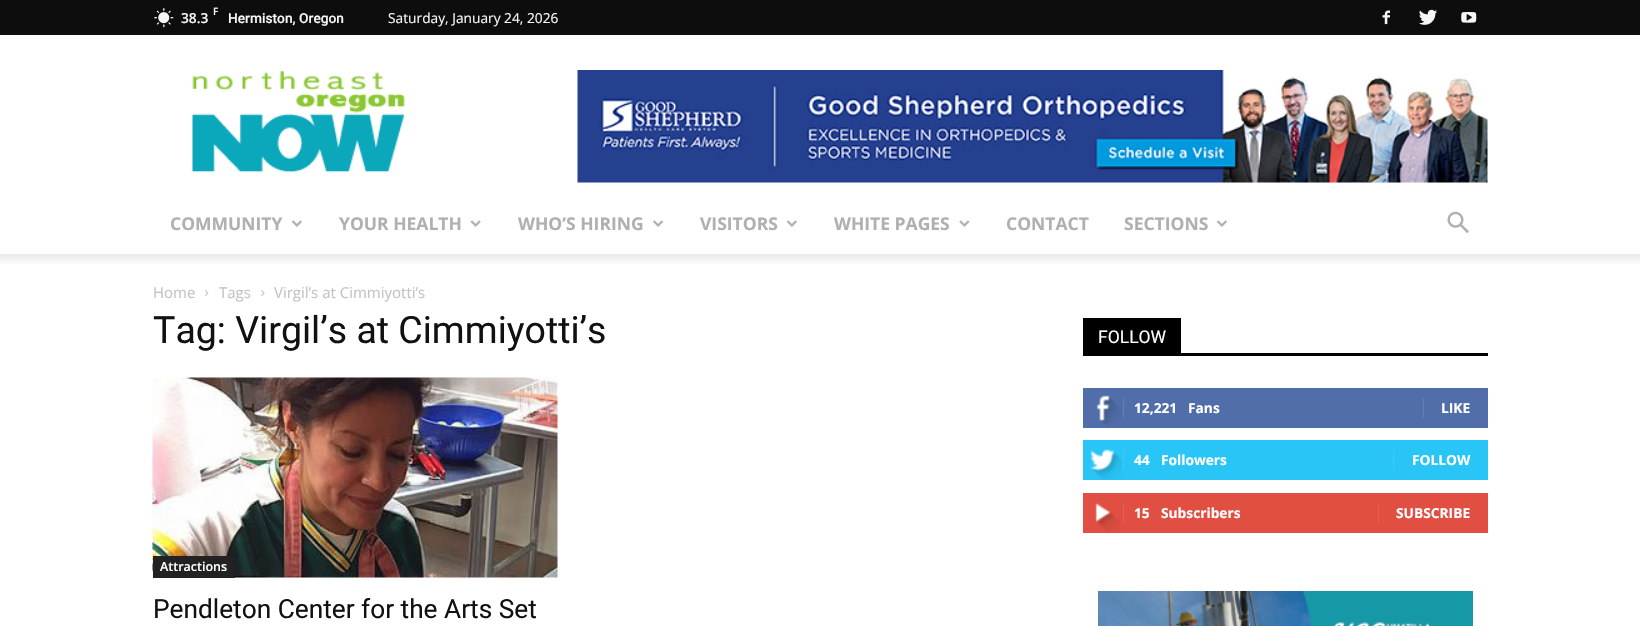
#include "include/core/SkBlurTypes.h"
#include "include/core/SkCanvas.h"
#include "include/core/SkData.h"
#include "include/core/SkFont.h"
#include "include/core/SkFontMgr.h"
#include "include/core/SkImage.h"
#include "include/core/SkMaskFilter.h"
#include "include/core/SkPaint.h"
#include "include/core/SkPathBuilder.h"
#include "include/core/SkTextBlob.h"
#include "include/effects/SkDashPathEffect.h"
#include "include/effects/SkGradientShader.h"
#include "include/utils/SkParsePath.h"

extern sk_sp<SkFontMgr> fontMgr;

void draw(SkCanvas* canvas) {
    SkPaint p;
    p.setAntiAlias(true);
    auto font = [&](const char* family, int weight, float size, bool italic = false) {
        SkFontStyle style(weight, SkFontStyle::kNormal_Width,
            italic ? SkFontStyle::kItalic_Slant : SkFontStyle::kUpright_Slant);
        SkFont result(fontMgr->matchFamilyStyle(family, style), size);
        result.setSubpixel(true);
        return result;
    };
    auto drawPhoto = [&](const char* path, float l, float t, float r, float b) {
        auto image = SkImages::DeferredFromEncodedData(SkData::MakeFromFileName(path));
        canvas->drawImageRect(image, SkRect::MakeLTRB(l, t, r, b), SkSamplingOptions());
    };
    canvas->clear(0xFFFFFFFF);
    p.setColor(0xFF0D0D0D);
    canvas->drawRect(SkRect::MakeLTRB(0, 0, 1640, 35), p);
    drawPhoto("media/1.png", 154, 8, 174, 28);
    auto font1 = font("Open Sans", 600, 10);
    p.setColor(0xFFF7F7F7);
    canvas->drawString("F", 213, 15, font1, p);
    auto font2 = font("Open Sans", 600, 13.75f);
    canvas->drawString("38.3", 181, 23, font2, p);
    auto font3 = font("Roboto", 500, 13.75f);
    canvas->drawString("Hermiston, Oregon", 228, 23, font3, p);
    auto font4 = font("Open Sans", 400, 13.75f);
    canvas->drawString("Saturday, January 24, 2026", 388, 23, font4, p);
    drawPhoto("media/2.png", 1382, 10, 1390, 25);
    drawPhoto("media/3.png", 1419, 9, 1437, 25);
    drawPhoto("media/4.png", 1461, 12, 1477, 23);
    drawPhoto("media/5.png", 192, 71, 406, 173);
    drawPhoto("media/6.png", 577, 70, 1488, 183);
    auto font5 = font("Open Sans", 700, 17.5f);
    p.setColor(0xFFB0B0B0);
    canvas->drawString("COMMUNITY", 170, 230, font5, p);
    drawPhoto("media/7.png", 291, 220, 302, 227);
    canvas->drawString("YOUR HEALTH", 339, 230, font5, p);
    drawPhoto("media/8.png", 470, 220, 481, 227);
    canvas->drawString("WHO’S HIRING", 518, 230, font5, p);
    drawPhoto("media/9.png", 653, 220, 664, 227);
    canvas->drawString("VISITORS", 700, 230, font5, p);
    drawPhoto("media/7.png", 786, 220, 797, 227);
    canvas->drawString("WHITE PAGES", 834, 230, font5, p);
    drawPhoto("media/10.png", 959, 220, 970, 227);
    canvas->drawString("CONTACT", 1006, 230, font5, p);
    canvas->drawString("SECTIONS", 1124, 230, font5, p);
    drawPhoto("media/7.png", 1216, 220, 1227, 227);
    drawPhoto("media/11.png", 1447, 211, 1469, 233);
    drawPhoto("media/12.png", 0, 254, 1640, 264);
    auto font6 = font("Open Sans", 400, 15);
    p.setColor(0xFFC3C3C3);
    canvas->drawString("Home", 153, 298, font6, p);
    drawPhoto("media/13.png", 205, 290, 209, 296);
    canvas->drawString("Tags", 219, 298, font6, p);
    drawPhoto("media/14.png", 261, 290, 265, 296);
    canvas->drawString("Virgil’s at Cimmiyotti’s", 274, 298, font6, p);
    auto font7 = font("Roboto", 400, 37.5f);
    p.setColor(0xFF111111);
    canvas->drawString("Tag: Virgil’s at Cimmiyotti’s", 153, 343, font7, p);
    drawPhoto("media/15.png", 152, 377, 558, 578);
    p.setColor(0xFF222222);
    canvas->drawRect(SkRect::MakeLTRB(153, 556, 235, 578), p);
    auto font8 = font("Open Sans", 600, 12.5f);
    p.setColor(0xFFFFFFFF);
    canvas->drawString("Attractions", 160, 571, font8, p);
    auto font9 = font("Roboto", 400, 26.25f);
    p.setColor(0xFF111111);
    canvas->drawString("Pendleton Center for the Arts Set", 153, 618, font9, p);
    p.setColor(0xFF000000);
    canvas->drawRect(SkRect::MakeLTRB(1083, 353, 1488, 356), p);
    canvas->drawRect(SkRect::MakeLTRB(1083, 318, 1181, 353), p);
    auto font10 = font("Roboto", 400, 17.5f);
    p.setColor(0xFFFFFFFF);
    canvas->drawString("FOLLOW", 1098, 343, font10, p);
    p.setColor(0xFF516EAB);
    canvas->drawRect(SkRect::MakeLTRB(1083, 388, 1488, 428), p);
    drawPhoto("media/16.png", 1096, 395, 1122, 427);
    p.setColor(0xFF627DB3);
    canvas->drawRect(SkRect::MakeLTRB(1123, 398, 1124, 418), p);
    auto font11 = font("Open Sans", 700, 13.75f);
    p.setColor(0xFFFFFFFF);
    canvas->drawString("12,221", 1134, 413, font11, p);
    canvas->drawString("Fans", 1188, 413, font11, p);
    p.setColor(0xFF627DB3);
    canvas->drawRect(SkRect::MakeLTRB(1423, 398, 1424, 418), p);
    p.setColor(0xFFFFFFFF);
    canvas->drawString("LIKE", 1441, 413, font11, p);
    p.setColor(0xFF29C5F6);
    canvas->drawRect(SkRect::MakeLTRB(1083, 440, 1488, 480), p);
    drawPhoto("media/17.png", 1090, 449, 1122, 480);
    p.setColor(0xFF3ECBF7);
    canvas->drawRect(SkRect::MakeLTRB(1123, 450, 1124, 470), p);
    p.setColor(0xFFFFFFFF);
    canvas->drawString("44", 1134, 465, font11, p);
    canvas->drawString("Followers", 1161, 465, font11, p);
    p.setColor(0xFF3ECBF7);
    canvas->drawRect(SkRect::MakeLTRB(1393, 450, 1394, 470), p);
    p.setColor(0xFFFFFFFF);
    canvas->drawString("FOLLOW", 1412, 465, font11, p);
    p.setColor(0xFFE14E42);
    canvas->drawRect(SkRect::MakeLTRB(1083, 493, 1488, 533), p);
    drawPhoto("media/18.png", 1095, 503, 1120, 532);
    p.setColor(0xFFE46055);
    canvas->drawRect(SkRect::MakeLTRB(1123, 503, 1124, 523), p);
    p.setColor(0xFFFFFFFF);
    canvas->drawString("15", 1134, 518, font11, p);
    canvas->drawString("Subscribers", 1161, 518, font11, p);
    p.setColor(0xFFE46055);
    canvas->drawRect(SkRect::MakeLTRB(1378, 503, 1379, 523), p);
    p.setColor(0xFFFFFFFF);
    canvas->drawString("SUBSCRIBE", 1396, 518, font11, p);
    drawPhoto("media/19.png", 1098, 591, 1473, 626);
}
